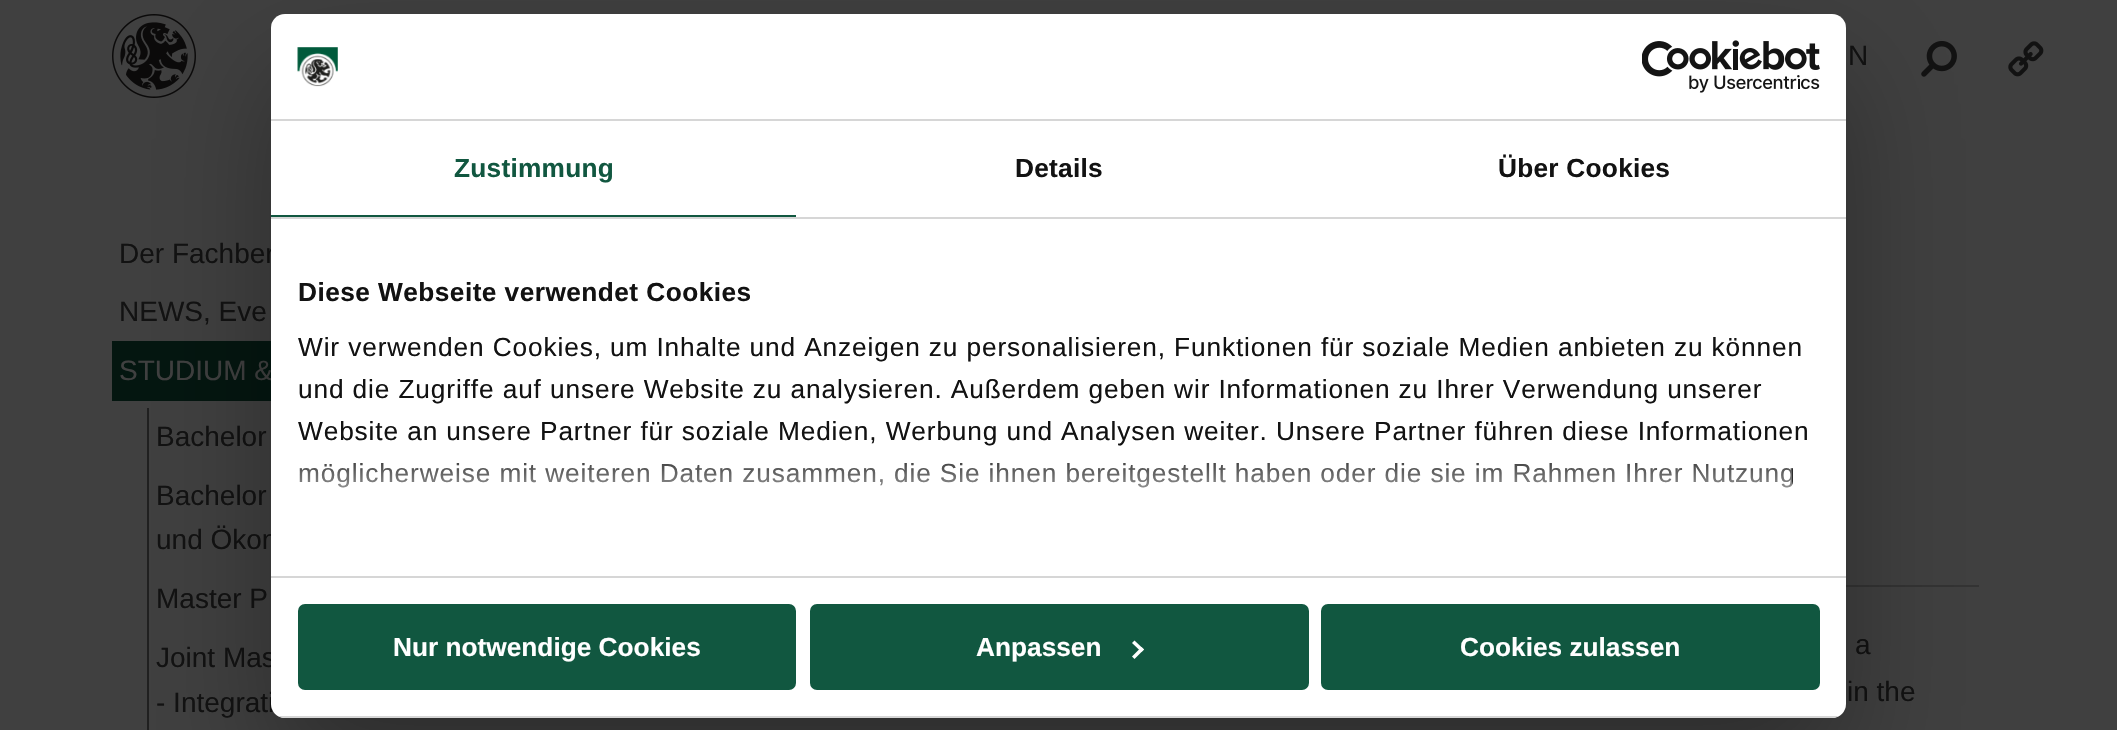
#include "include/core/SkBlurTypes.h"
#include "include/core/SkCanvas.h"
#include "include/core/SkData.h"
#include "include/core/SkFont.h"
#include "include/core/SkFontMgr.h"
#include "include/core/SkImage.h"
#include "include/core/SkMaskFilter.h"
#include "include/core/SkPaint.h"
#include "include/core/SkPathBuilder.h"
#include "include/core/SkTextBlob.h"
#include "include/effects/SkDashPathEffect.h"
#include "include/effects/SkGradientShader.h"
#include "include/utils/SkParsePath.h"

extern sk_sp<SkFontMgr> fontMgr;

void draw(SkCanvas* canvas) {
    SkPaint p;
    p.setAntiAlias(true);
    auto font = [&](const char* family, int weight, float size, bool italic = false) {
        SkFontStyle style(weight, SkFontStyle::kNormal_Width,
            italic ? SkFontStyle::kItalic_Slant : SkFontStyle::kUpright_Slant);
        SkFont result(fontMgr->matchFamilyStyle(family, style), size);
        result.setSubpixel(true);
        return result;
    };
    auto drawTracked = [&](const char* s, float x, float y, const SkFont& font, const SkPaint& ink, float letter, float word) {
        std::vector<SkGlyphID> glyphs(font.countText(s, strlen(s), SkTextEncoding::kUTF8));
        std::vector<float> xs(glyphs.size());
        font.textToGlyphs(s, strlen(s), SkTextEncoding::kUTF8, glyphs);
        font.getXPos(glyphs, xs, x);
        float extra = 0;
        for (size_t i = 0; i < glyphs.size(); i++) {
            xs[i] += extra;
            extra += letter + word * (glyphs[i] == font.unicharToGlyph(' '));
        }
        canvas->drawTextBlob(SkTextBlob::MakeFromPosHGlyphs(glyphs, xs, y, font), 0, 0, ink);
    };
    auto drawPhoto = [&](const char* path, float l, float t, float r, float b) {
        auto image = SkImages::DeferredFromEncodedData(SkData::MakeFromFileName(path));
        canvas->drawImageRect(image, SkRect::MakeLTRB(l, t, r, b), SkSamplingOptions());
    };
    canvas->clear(0xFF404040);
    drawPhoto("media/1.png", 112, 14, 196, 98);
    auto font1 = font("Liberation Sans", 400, 28);
    p.setColor(0xFF121212);
    canvas->drawString("N", 1848, 65, font1, p);
    drawPhoto("media/2.png", 1921, 41, 1957, 77);
    drawPhoto("media/3.png", 2008, 41, 2044, 77);
    canvas->drawString("Der Fachber", 119, 263, font1, p);
    canvas->drawString("NEWS, Eve", 119, 321, font1, p);
    p.setColor(0xFF041610);
    canvas->drawRect(SkRect::MakeLTRB(112, 341, 271, 401), p);
    p.setColor(0xFF404040);
    canvas->drawString("STUDIUM &", 119, 380, font1, p);
    p.setColor(0xFF202020);
    canvas->drawRect(SkRect::MakeLTRB(147, 408, 149, 730), p);
    p.setColor(0xFF121212);
    {
        const struct { const char* s; float x, y; } items[] = {
            {"Bachelor", 156, 446},
            {"Bachelor", 156, 505},
            {"und Ökon", 156, 549},
            {"Master P", 156, 608},
            {"Joint Mas", 156, 667},
            {"- Integrati", 156, 712},
        };
        for (auto [s, x, y] : items) {
            canvas->drawString(s, x, y, font1, p);
        }
    }
    p.setColor(0xFF333333);
    canvas->drawRect(SkRect::MakeLTRB(1846, 585, 1979, 587), p);
    p.setColor(0xFF121212);
    canvas->drawString("a", 1855, 654, font1, p);
    canvas->drawString("in the", 1847, 701, font1, p);
    p.setColor(0x4D000000);
    p.setMaskFilter(SkMaskFilter::MakeBlur(kNormal_SkBlurStyle, 59.5f));
    canvas->drawRoundRect(SkRect::MakeLTRB(271, 70, 1846, 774), 14, 14, p);
    p.setMaskFilter(nullptr);
    p.setColor(0xFFFFFFFF);
    canvas->drawRoundRect(SkRect::MakeLTRB(271, 14, 1846, 718), 14, 14, p);
    p.setColor(0xFFD6D6D6);
    canvas->drawRect(SkRect::MakeLTRB(271, 119, 1846, 121), p);
    drawPhoto("media/4.png", 297, 47, 338, 87);
    drawPhoto("media/5.png", 1642, 40, 1820, 93);
    canvas->drawRect(SkRect::MakeLTRB(271, 217, 1846, 219), p);
    p.setColor(0xFF115740);
    canvas->drawRect(SkRect::MakeLTRB(271, 215, 796, 217), p);
    auto font2 = font("Liberation Sans", 700, 26.25f);
    drawTracked("Zustimmung", 454, 177, font2, p, 0.25f, 0);
    p.setColor(0xFF121212);
    drawTracked("Details", 1015, 177, font2, p, 0.25f, 0);
    drawTracked("Über Cookies", 1498, 177, font2, p, 0.25f, 0);
    p.setColor(0xFFD6D6D6);
    canvas->drawRect(SkRect::MakeLTRB(271, 576, 1846, 578), p);
    p.setColor(0xFF121212);
    drawTracked("Diese Webseite verwendet Cookies", 298, 301, font2, p, 0.45f, 0);
    auto font3 = font("Liberation Sans", 400, 26.25f);
    {
        const struct { const char* s; float x, y; } items[] = {
            {"Wir verwenden Cookies, um Inhalte und Anzeigen zu personalisieren, Funktionen für soziale Medien anbieten zu können", 298, 356},
            {"und die Zugriffe auf unsere Website zu analysieren. Außerdem geben wir Informationen zu Ihrer Verwendung unserer", 298, 398},
            {"Website an unsere Partner für soziale Medien, Werbung und Analysen weiter. Unsere Partner führen diese Informationen", 298, 440},
            {"möglicherweise mit weiteren Daten zusammen, die Sie ihnen bereitgestellt haben oder die sie im Rahmen Ihrer Nutzung", 298, 482},
        };
        for (auto [s, x, y] : items) {
            drawTracked(s, x, y, font3, p, 0.88f, 0);
        }
    }
    {
        const SkColor colors[] = {0xFFFFFFFF, 0xCCFFFFFF, 0x00FFFFFF};
        const float stops[] = {0, 0.5f, 1};
        const SkPoint ends[] = {{1047, 576}, {1047, 445}};
        p.setShader(SkGradientShader::MakeLinear(ends, colors, stops, 3, SkTileMode::kClamp));
        p.setAlpha(255);
    }
    canvas->drawRect(SkRect::MakeLTRB(299, 463, 1792, 488), p);
    canvas->save();
    canvas->clipPath(SkPathBuilder().moveTo(285, 14).lineTo(1832, 14).cubicTo(1839.5f, 14, 1846, 20.5f, 1846, 28).lineTo(1846, 704).cubicTo(1846, 711.5f, 1839.5f, 718, 1832, 718).lineTo(285, 718).cubicTo(277.5f, 718, 271, 711.5f, 271, 704).lineTo(271, 28).cubicTo(271, 20.5f, 277.5f, 14, 285, 14).close().detach(), true);
    p.setShader(nullptr);
    p.setColor(0xFFD6D6D6);
    canvas->drawRect(SkRect::MakeLTRB(271, 716, 1846, 718), p);
    canvas->restore();
    p.setColor(0xFF115740);
    canvas->drawRoundRect(SkRect::MakeLTRB(300, 606, 794, 688), 5, 5, p);
    p.setStyle(SkPaint::kStroke_Style);
    p.setStrokeWidth(4);
    canvas->drawRoundRect(SkRect::MakeLTRB(300, 606, 794, 688), 5, 5, p);
    p.setStyle(SkPaint::kFill_Style);
    p.setColor(0xFFFFFFFF);
    canvas->drawString("Nur notwendige Cookies", 393, 656, font2, p);
    p.setColor(0xFF115740);
    canvas->drawRoundRect(SkRect::MakeLTRB(812, 606, 1307, 688), 5, 5, p);
    p.setStyle(SkPaint::kStroke_Style);
    canvas->drawRoundRect(SkRect::MakeLTRB(812, 606, 1307, 688), 5, 5, p);
    p.setStyle(SkPaint::kFill_Style);
    p.setColor(0xFFFFFFFF);
    canvas->drawString("Anpassen", 976, 656, font2, p);
    canvas->drawPath(SkPathBuilder().moveTo(1134.5f, 640.5f).lineTo(1144, 649.5f).lineTo(1141.5f, 652).lineTo(1132, 643).close().detach(), p);
    canvas->drawPath(SkPathBuilder().moveTo(1141.5f, 647).lineTo(1144, 649.5f).lineTo(1134.5f, 659).lineTo(1132, 656.5f).close().detach(), p);
    p.setColor(0xFF115740);
    canvas->drawRoundRect(SkRect::MakeLTRB(1323, 606, 1818, 688), 5, 5, p);
    p.setStyle(SkPaint::kStroke_Style);
    canvas->drawRoundRect(SkRect::MakeLTRB(1323, 606, 1818, 688), 5, 5, p);
    p.setStyle(SkPaint::kFill_Style);
    p.setColor(0xFFFFFFFF);
    canvas->drawString("Cookies zulassen", 1460, 656, font2, p);
}
